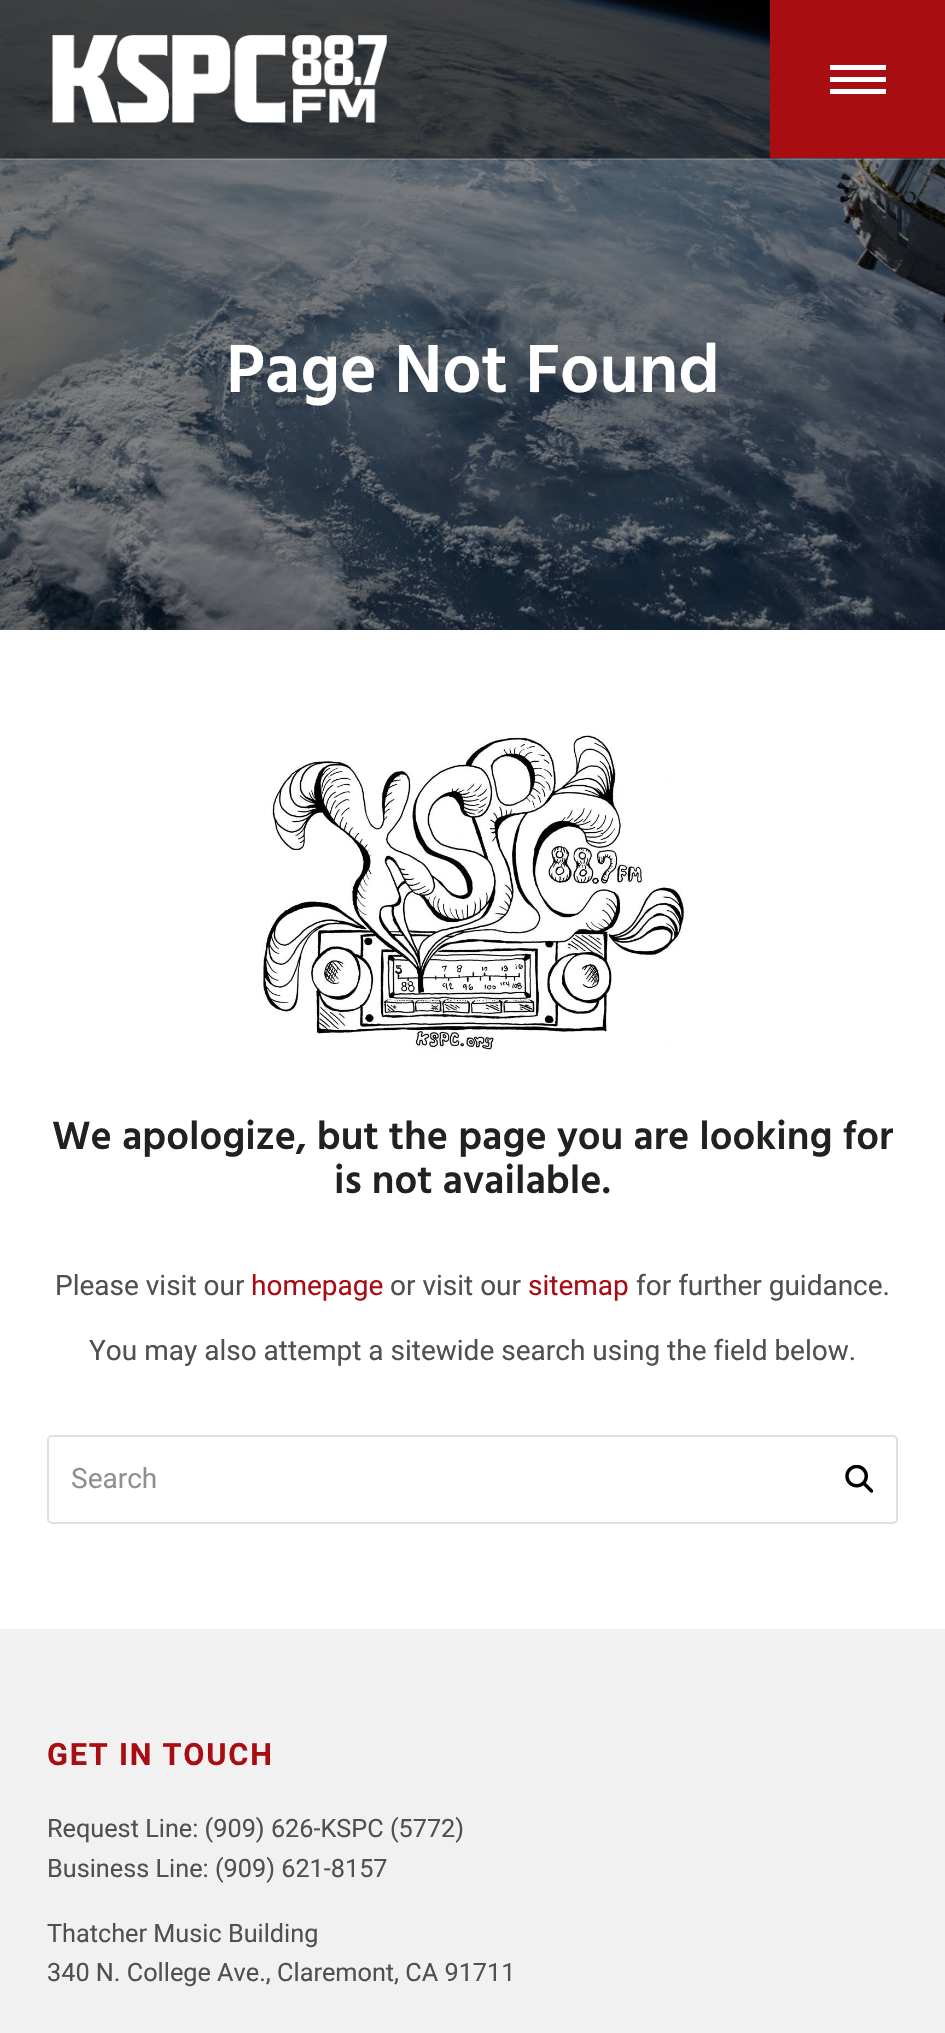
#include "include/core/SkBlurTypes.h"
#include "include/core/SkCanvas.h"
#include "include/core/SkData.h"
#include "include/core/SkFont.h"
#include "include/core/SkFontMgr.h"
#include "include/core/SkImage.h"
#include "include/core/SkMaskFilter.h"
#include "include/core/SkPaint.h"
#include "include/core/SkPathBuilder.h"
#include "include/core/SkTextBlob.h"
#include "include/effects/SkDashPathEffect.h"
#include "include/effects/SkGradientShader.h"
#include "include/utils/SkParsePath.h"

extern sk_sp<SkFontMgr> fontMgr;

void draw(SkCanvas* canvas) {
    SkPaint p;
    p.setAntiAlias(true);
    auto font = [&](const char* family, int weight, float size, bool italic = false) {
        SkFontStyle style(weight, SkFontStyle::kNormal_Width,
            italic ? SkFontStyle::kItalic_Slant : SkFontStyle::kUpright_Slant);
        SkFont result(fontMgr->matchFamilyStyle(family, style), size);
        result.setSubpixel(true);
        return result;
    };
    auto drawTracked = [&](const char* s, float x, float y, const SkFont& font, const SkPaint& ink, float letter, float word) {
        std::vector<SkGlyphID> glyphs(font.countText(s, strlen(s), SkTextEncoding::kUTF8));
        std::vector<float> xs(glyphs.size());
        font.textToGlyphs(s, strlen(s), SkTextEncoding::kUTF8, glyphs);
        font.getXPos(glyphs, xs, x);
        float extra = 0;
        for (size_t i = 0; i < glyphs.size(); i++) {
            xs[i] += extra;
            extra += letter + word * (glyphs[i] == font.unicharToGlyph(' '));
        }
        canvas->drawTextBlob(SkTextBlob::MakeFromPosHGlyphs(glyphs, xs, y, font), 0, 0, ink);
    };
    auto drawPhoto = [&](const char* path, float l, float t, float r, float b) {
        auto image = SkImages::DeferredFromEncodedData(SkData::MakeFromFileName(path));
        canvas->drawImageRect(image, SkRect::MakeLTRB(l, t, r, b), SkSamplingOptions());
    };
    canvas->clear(0xFFFFFFFF);
    drawPhoto("media/2.png", 0, 0, 945, 630);
    p.setColor(0x80000000);
    canvas->drawRect(SkRect::MakeLTRB(0, 0, 945, 159), p);
    p.setColor(0x33FFFFFF);
    canvas->drawRect(SkRect::MakeLTRB(0, 158, 945, 160), p);
    drawPhoto("media/1.png", 52, 35, 387, 123);
    {
        const struct { float l, t, r, b; SkColor color; } items[] = {
            {770, 0, 945, 158, 0xFFA80D12},
            {830, 77, 886, 82, 0xFFFFFFFF},
            {830, 65, 886, 70, 0xFFFFFFFF},
            {830, 89, 886, 94, 0xFFFFFFFF},
        };
        for (auto [l, t, r, b, color] : items) {
            p.setColor(color);
            canvas->drawRect(SkRect::MakeLTRB(l, t, r, b), p);
        }
    }
    auto font1 = font("Hind Vadodara", 600, 69.75f);
    canvas->drawString("Page Not Found", 226, 392, font1, p);
    drawPhoto("media/3.png", 262, 735, 687, 1050);
    auto font2 = font("Hind Vadodara", 600, 40.3f);
    p.setColor(0xFF212121);
    canvas->drawString("We apologize, but the page you are looking for", 52, 1149, font2, p);
    canvas->drawString("is not available.", 334, 1193, font2, p);
    auto font3 = font("Roboto", 400, 28);
    p.setColor(0xFF505050);
    canvas->drawString("Please visit our", 55, 1295, font3, p);
    p.setColor(0xFFA80D12);
    canvas->drawString("homepage", 251, 1295, font3, p);
    p.setColor(0xFF505050);
    canvas->drawString("or visit our", 390, 1295, font3, p);
    p.setColor(0xFFA80D12);
    canvas->drawString("sitemap", 528, 1295, font3, p);
    p.setColor(0xFF505050);
    canvas->drawString("for further guidance.", 636, 1295, font3, p);
    canvas->drawString("You may also attempt a sitewide search using the field below.", 89, 1360, font3, p);
    p.setStyle(SkPaint::kStroke_Style);
    p.setStrokeWidth(2);
    p.setColor(0xFFE0E0E0);
    canvas->drawRoundRect(SkRect::MakeLTRB(48, 1436, 897, 1523), 4, 4, p);
    p.setStyle(SkPaint::kFill_Style);
    p.setColor(0xFF909090);
    canvas->drawString("Search", 71, 1488, font3, p);
    drawPhoto("media/4.png", 845, 1465, 873, 1493);
    p.setColor(0xFFF1F1F1);
    canvas->drawRect(SkRect::MakeLTRB(0, 1629, 945, 2033), p);
    auto font4 = font("Roboto", 700, 30.75f);
    p.setColor(0xFFA80D12);
    drawTracked("GET IN TOUCH", 47, 1765, font4, p, 1.75f, 0);
    auto font5 = font("Roboto", 400, 25.25f);
    p.setColor(0xFF505050);
    {
        const struct { const char* s; float x, y; } items[] = {
            {"Request Line: (909) 626-KSPC (5772)", 47, 1837},
            {"Business Line: (909) 621-8157", 47, 1877},
            {"Thatcher Music Building", 47, 1942},
            {"340 N. College Ave., Claremont, CA 91711", 47, 1981},
        };
        for (auto [s, x, y] : items) {
            canvas->drawString(s, x, y, font5, p);
        }
    }
}
